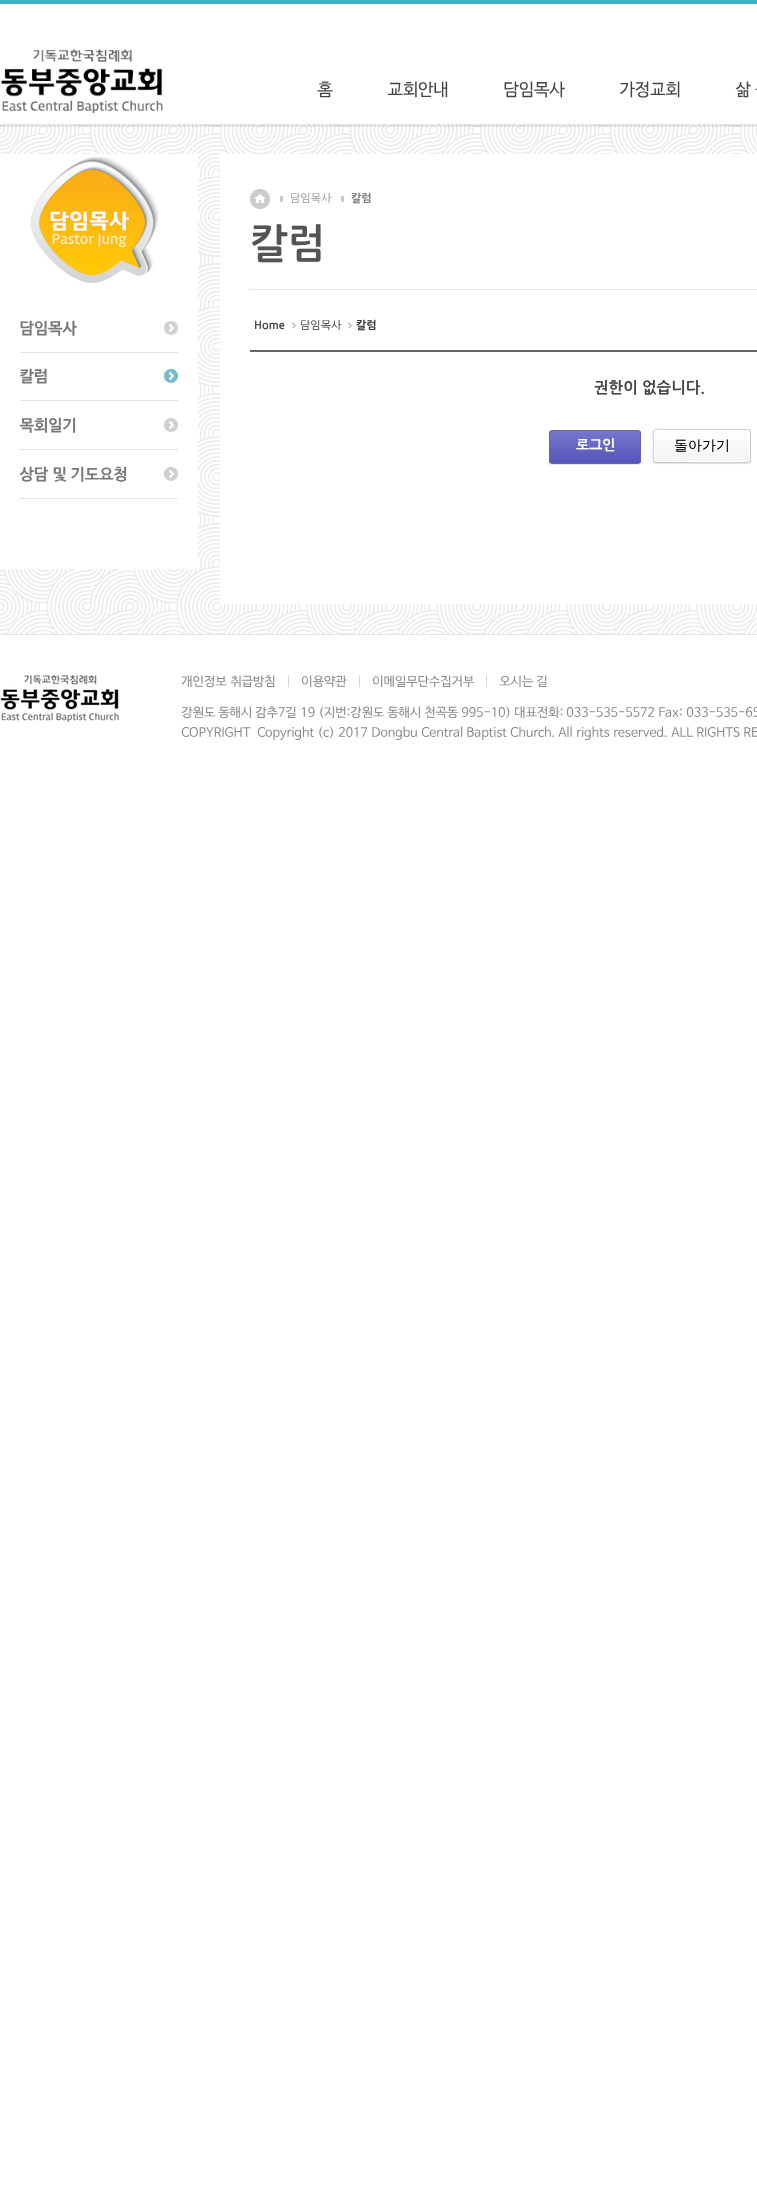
#include "include/core/SkBlurTypes.h"
#include "include/core/SkCanvas.h"
#include "include/core/SkData.h"
#include "include/core/SkFont.h"
#include "include/core/SkFontMgr.h"
#include "include/core/SkImage.h"
#include "include/core/SkMaskFilter.h"
#include "include/core/SkPaint.h"
#include "include/core/SkPathBuilder.h"
#include "include/core/SkTextBlob.h"
#include "include/effects/SkDashPathEffect.h"
#include "include/effects/SkGradientShader.h"
#include "include/utils/SkParsePath.h"

extern sk_sp<SkFontMgr> fontMgr;

void draw(SkCanvas* canvas) {
    SkPaint p;
    p.setAntiAlias(true);
    auto font = [&](const char* family, int weight, float size, bool italic = false) {
        SkFontStyle style(weight, SkFontStyle::kNormal_Width,
            italic ? SkFontStyle::kItalic_Slant : SkFontStyle::kUpright_Slant);
        SkFont result(fontMgr->matchFamilyStyle(family, style), size);
        result.setSubpixel(true);
        return result;
    };
    auto drawPhoto = [&](const char* path, float l, float t, float r, float b) {
        auto image = SkImages::DeferredFromEncodedData(SkData::MakeFromFileName(path));
        canvas->drawImageRect(image, SkRect::MakeLTRB(l, t, r, b), SkSamplingOptions());
    };
    canvas->clear(0xFFFFFFFF);
    drawPhoto("media/1.png", 0, 124, 757, 634);
    p.setColor(0xFF3BB3C3);
    canvas->drawRect(SkRect::MakeLTRB(0, 0, 757, 4), p);
    drawPhoto("media/2.png", 1, 49, 163, 113);
    drawPhoto("media/3.png", 317, 81, 333, 98);
    drawPhoto("media/4.png", 387, 81, 448, 98);
    drawPhoto("media/5.png", 504, 81, 565, 98);
    drawPhoto("media/6.png", 620, 81, 680, 98);
    drawPhoto("media/7.png", 735, 81, 751, 98);
    drawPhoto("media/8.png", 755, 88, 757, 90);
    p.setColor(0x14000000);
    canvas->drawRect(SkRect::MakeLTRB(0, 124, 757, 127), p);
    p.setColor(0xFFFFFFFF);
    canvas->drawRect(SkRect::MakeLTRB(0, 154, 198, 569), p);
    drawPhoto("media/9.png", 30, 155, 159, 284);
    drawPhoto("media/10.png", 164, 321, 178, 335);
    p.setColor(0xFFE3E3E3);
    canvas->drawRect(SkRect::MakeLTRB(20, 352, 178, 353), p);
    drawPhoto("media/11.png", 20, 320, 77, 336);
    drawPhoto("media/12.png", 164, 369, 178, 383);
    canvas->drawRect(SkRect::MakeLTRB(20, 400, 178, 401), p);
    drawPhoto("media/13.png", 20, 368, 47, 384);
    drawPhoto("media/10.png", 164, 418, 178, 432);
    canvas->drawRect(SkRect::MakeLTRB(20, 449, 178, 450), p);
    drawPhoto("media/14.png", 19, 417, 76, 433);
    drawPhoto("media/10.png", 164, 467, 178, 481);
    canvas->drawRect(SkRect::MakeLTRB(20, 498, 178, 499), p);
    drawPhoto("media/15.png", 19, 466, 49, 482);
    drawPhoto("media/16.png", 53, 466, 67, 482);
    drawPhoto("media/17.png", 71, 466, 127, 482);
    p.setColor(0xFFFFFFFF);
    canvas->drawRect(SkRect::MakeLTRB(220, 154, 757, 604), p);
    p.setColor(0xFFE3E3E3);
    canvas->drawRect(SkRect::MakeLTRB(250, 289, 757, 290), p);
    drawPhoto("media/18.png", 250, 189, 270, 209);
    auto font1 = font("NanumGothic", 400, 11);
    p.setColor(0xFF999999);
    canvas->drawString("담임목사", 290, 202, font1, p);
    p.setColor(0xFFCBCBCB);
    canvas->drawRect(SkRect::MakeLTRB(280, 196, 283, 202), p);
    auto font2 = font("NanumGothic", 700, 11);
    p.setColor(0xFF777777);
    canvas->drawString("칼럼", 351, 202, font2, p);
    p.setColor(0xFFCBCBCB);
    canvas->drawRect(SkRect::MakeLTRB(341, 196, 344, 202), p);
    auto font3 = font("NanumGothic", 700, 40);
    p.setColor(0xFF545454);
    canvas->drawString("칼럼", 250, 258, font3, p);
    p.setColor(0xFF444444);
    canvas->drawString("Home", 254, 329, font2, p);
    drawPhoto("media/19.png", 292, 322, 296, 329);
    canvas->drawString("담임목사", 300, 329, font1, p);
    drawPhoto("media/19.png", 348, 322, 352, 329);
    p.setColor(0xFF333333);
    canvas->drawString("칼럼", 356, 329, font2, p);
    p.setColor(0xFF666666);
    canvas->drawRect(SkRect::MakeLTRB(250, 350, 757, 352), p);
    auto font4 = font("NanumGothic", 700, 15.5f);
    p.setColor(0xFF444444);
    canvas->drawString("권한이 없습니다.", 594, 393, font4, p);
    p.setColor(0x1A000000);
    p.setMaskFilter(SkMaskFilter::MakeBlur(kNormal_SkBlurStyle, 0.5f));
    canvas->drawRoundRect(SkRect::MakeLTRB(549, 431, 641, 465), 3, 3, p);
    p.setMaskFilter(nullptr);
    canvas->save();
    canvas->clipPath(SkPathBuilder().moveTo(552, 430).lineTo(638, 430).cubicTo(639.5f, 430, 641, 431.5f, 641, 433).lineTo(641, 461).cubicTo(641, 462.5f, 639.5f, 464, 638, 464).lineTo(552, 464).cubicTo(550.5f, 464, 549, 462.5f, 549, 461).lineTo(549, 433).cubicTo(549, 431.5f, 550.5f, 430, 552, 430).close().detach(), true);
    {
        const SkColor colors[] = {0xFF7777CC, 0xFF5555BB};
        const float stops[] = {0, 1};
        const SkPoint ends[] = {{595, 431}, {595, 463}};
        p.setShader(SkGradientShader::MakeLinear(ends, colors, stops, 2, SkTileMode::kClamp));
        p.setAlpha(255);
    }
    canvas->drawRect(SkRect::MakeLTRB(549, 431, 641, 463), p);
    canvas->restore();
    p.setStyle(SkPaint::kStroke_Style);
    p.setStrokeWidth(1);
    p.setShader(nullptr);
    p.setColor(0xFF666699);
    canvas->drawRoundRect(SkRect::MakeLTRB(549.5f, 430.5f, 640.5f, 463.5f), 2.5f, 2.5f, p);
    auto font5 = font("NanumGothic", 700, 14);
    p.setStyle(SkPaint::kFill_Style);
    p.setColor(0xFFFFFFFF);
    canvas->drawString("로그인", 576, 450, font5, p);
    p.setColor(0x1A000000);
    p.setMaskFilter(SkMaskFilter::MakeBlur(kNormal_SkBlurStyle, 0.5f));
    canvas->drawRoundRect(SkRect::MakeLTRB(653, 430, 751, 464), 3, 3, p);
    p.setMaskFilter(nullptr);
    canvas->save();
    canvas->clipPath(SkPathBuilder().moveTo(656, 429).lineTo(748, 429).cubicTo(749.5f, 429, 751, 430.5f, 751, 432).lineTo(751, 460).cubicTo(751, 461.5f, 749.5f, 463, 748, 463).lineTo(656, 463).cubicTo(654.5f, 463, 653, 461.5f, 653, 460).lineTo(653, 432).cubicTo(653, 430.5f, 654.5f, 429, 656, 429).close().detach(), true);
    {
        const SkColor colors[] = {0xFFFFFFFF, 0xFFF3F3F3};
        const float stops[] = {0, 1};
        const SkPoint ends[] = {{702, 430}, {702, 462}};
        p.setShader(SkGradientShader::MakeLinear(ends, colors, stops, 2, SkTileMode::kClamp));
        p.setAlpha(255);
    }
    canvas->drawRect(SkRect::MakeLTRB(653, 430, 751, 462), p);
    {
        const SkColor colors[] = {0xFFFFFFFF, 0xFFF3F3F3};
        const float stops[] = {0, 1};
        const SkPoint ends[] = {{702, 462}, {702, 494}};
        p.setShader(SkGradientShader::MakeLinear(ends, colors, stops, 2, SkTileMode::kClamp));
        p.setAlpha(255);
    }
    canvas->drawRect(SkRect::MakeLTRB(653, 462, 751, 463), p);
    canvas->restore();
    p.setStyle(SkPaint::kStroke_Style);
    p.setShader(nullptr);
    p.setColor(0xFFFFFFFF);
    canvas->drawRoundRect(SkRect::MakeLTRB(654.5f, 430.5f, 749.5f, 461.5f), 1.5f, 1.5f, p);
    p.setColor(0xFFC6C6C6);
    canvas->drawPath(SkPathBuilder().moveTo(750, 430).cubicTo(750, 430.5f, 750.5f, 431.5f, 750.5f, 432).lineTo(750.5f, 460).cubicTo(750.5f, 460.5f, 750, 461.5f, 750, 462).detach(), p);
    p.setColor(0xFFC3C3C3);
    canvas->drawPath(SkPathBuilder().moveTo(750, 462).lineTo(749.5f, 462).cubicTo(747.5f, 463.5f, 679.5f, 462.5f, 671.5f, 462.5f).lineTo(656, 462.5f).lineTo(654, 462).detach(), p);
    p.setColor(0xFFCCCCCC);
    canvas->drawPath(SkPathBuilder().moveTo(654, 462).cubicTo(652.5f, 460, 653.5f, 448.5f, 653.5f, 446).cubicTo(653.5f, 425.5f, 650, 429.5f, 671.5f, 429.5f).lineTo(748, 429.5f).lineTo(750, 430).detach(), p);
    auto font6 = font("WenQuanYi Zen Hei", 500, 14);
    p.setStyle(SkPaint::kFill_Style);
    p.setColor(0xFF000000);
    canvas->drawString("돌아가기", 674, 450, font6, p);
    p.setColor(0xFFE4E4E4);
    canvas->drawRect(SkRect::MakeLTRB(0, 634, 757, 635), p);
    drawPhoto("media/20.png", 0, 675, 119, 722);
    drawPhoto("media/21.png", 181, 675, 227, 688);
    drawPhoto("media/22.png", 230, 675, 275, 688);
    p.setColor(0xFFD8D8D8);
    canvas->drawRect(SkRect::MakeLTRB(288, 675, 289, 687), p);
    drawPhoto("media/23.png", 302, 675, 347, 688);
    canvas->drawRect(SkRect::MakeLTRB(359, 675, 360, 687), p);
    drawPhoto("media/24.png", 373, 675, 474, 687);
    canvas->drawRect(SkRect::MakeLTRB(486, 675, 487, 687), p);
    drawPhoto("media/25.png", 499, 675, 534, 687);
    drawPhoto("media/26.png", 537, 675, 547, 687);
    drawPhoto("media/27.png", 181, 706, 215, 719);
    drawPhoto("media/28.png", 218, 706, 251, 719);
    drawPhoto("media/29.png", 255, 706, 296, 718);
    drawPhoto("media/30.png", 301, 707, 315, 717);
    drawPhoto("media/31.png", 320, 706, 384, 719);
    drawPhoto("media/28.png", 387, 706, 420, 719);
    drawPhoto("media/32.png", 425, 706, 459, 719);
    drawPhoto("media/33.png", 462, 706, 510, 719);
    drawPhoto("media/34.png", 515, 706, 563, 718);
    drawPhoto("media/35.png", 566, 707, 654, 717);
    drawPhoto("media/36.png", 659, 707, 682, 717);
    drawPhoto("media/37.png", 686, 707, 757, 717);
    drawPhoto("media/38.png", 181, 727, 251, 737);
    drawPhoto("media/39.png", 257, 726, 314, 740);
    drawPhoto("media/40.png", 319, 726, 333, 739);
    drawPhoto("media/41.png", 339, 727, 368, 737);
    drawPhoto("media/42.png", 372, 726, 417, 740);
    drawPhoto("media/43.png", 421, 726, 463, 737);
    drawPhoto("media/44.png", 467, 727, 507, 740);
    drawPhoto("media/45.png", 510, 726, 554, 737);
    drawPhoto("media/46.png", 558, 726, 572, 737);
    drawPhoto("media/47.png", 577, 726, 610, 740);
    drawPhoto("media/48.png", 614, 726, 667, 737);
    drawPhoto("media/49.png", 671, 727, 693, 737);
    drawPhoto("media/50.png", 697, 727, 740, 737);
    drawPhoto("media/51.png", 744, 727, 757, 737);
}
